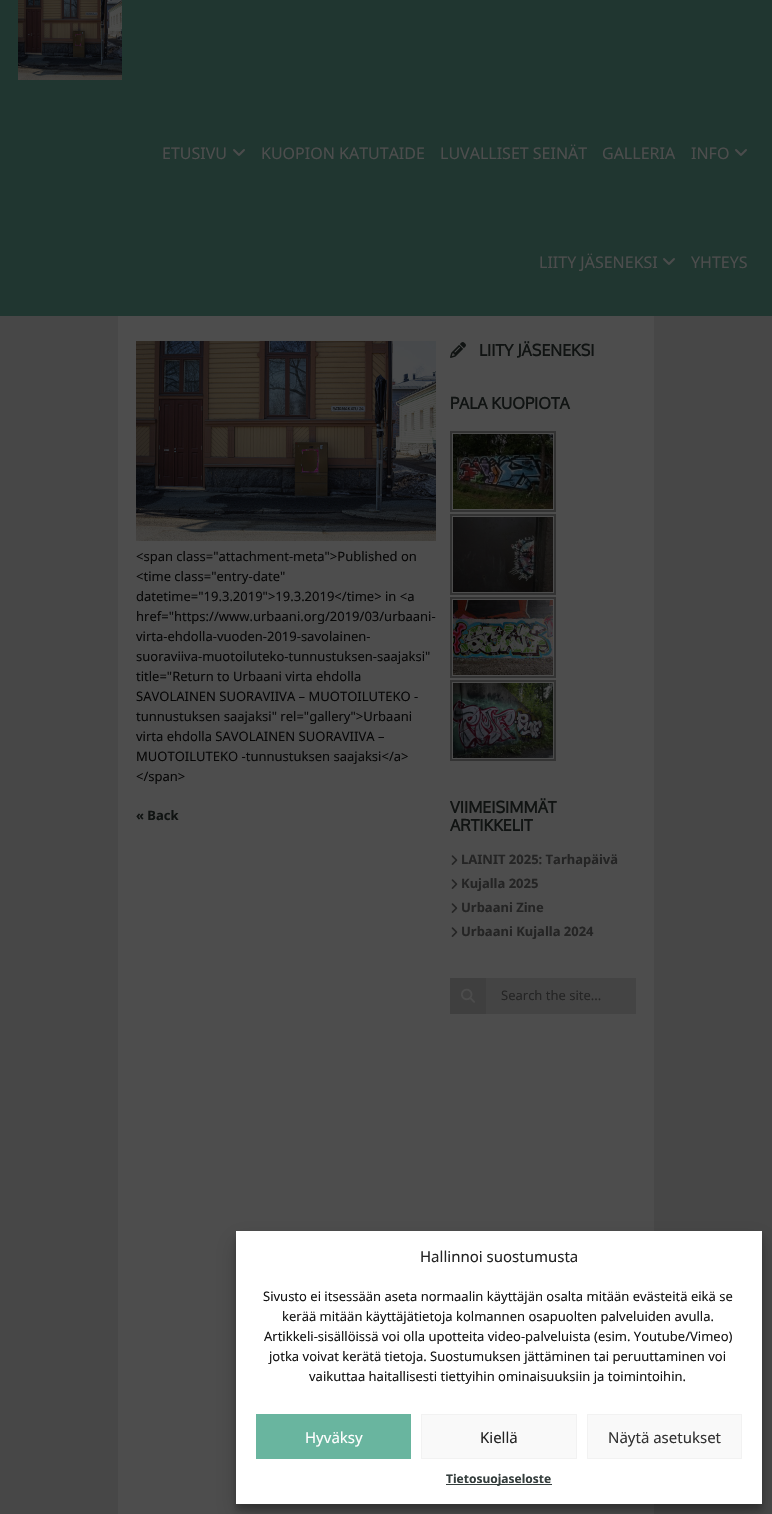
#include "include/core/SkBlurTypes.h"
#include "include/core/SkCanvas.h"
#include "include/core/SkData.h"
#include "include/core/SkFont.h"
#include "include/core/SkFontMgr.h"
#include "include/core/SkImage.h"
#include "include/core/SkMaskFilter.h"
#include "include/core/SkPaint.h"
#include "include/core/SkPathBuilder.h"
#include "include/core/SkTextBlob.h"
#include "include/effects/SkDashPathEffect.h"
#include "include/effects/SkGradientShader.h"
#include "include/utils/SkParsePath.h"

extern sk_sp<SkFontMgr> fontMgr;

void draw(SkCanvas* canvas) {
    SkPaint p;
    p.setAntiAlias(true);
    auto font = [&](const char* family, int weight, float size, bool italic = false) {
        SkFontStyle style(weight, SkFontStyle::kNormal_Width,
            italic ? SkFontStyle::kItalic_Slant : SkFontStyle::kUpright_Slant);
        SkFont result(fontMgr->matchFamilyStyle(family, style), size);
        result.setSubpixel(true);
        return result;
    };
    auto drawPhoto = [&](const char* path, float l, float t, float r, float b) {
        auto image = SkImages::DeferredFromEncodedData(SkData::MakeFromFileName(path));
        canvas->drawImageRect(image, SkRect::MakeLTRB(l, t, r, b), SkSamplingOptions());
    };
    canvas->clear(0xFF474747);
    p.setColor(0xFF203630);
    canvas->drawRect(SkRect::MakeLTRB(0, 0, 772, 316), p);
    drawPhoto("media/1.png", 18, 0, 122, 80);
    auto font1 = font("Noto Sans", 400, 16);
    p.setColor(0xFF4D4D4D);
    canvas->drawString("ETUSIVU", 162, 159, font1, p);
    drawPhoto("media/2.png", 233, 149, 245, 156);
    {
        const struct { const char* s; float x, y; } items[] = {
            {"KUOPION KATUTAIDE", 261, 159},
            {"LUVALLISET SEINÄT", 440, 159},
            {"GALLERIA", 602, 159},
            {"INFO", 691, 159},
        };
        for (auto [s, x, y] : items) {
            canvas->drawString(s, x, y, font1, p);
        }
    }
    drawPhoto("media/2.png", 735, 149, 747, 156);
    canvas->drawString("LIITY JÄSENEKSI", 539, 268, font1, p);
    drawPhoto("media/2.png", 663, 258, 675, 265);
    canvas->drawString("YHTEYS", 691, 268, font1, p);
    canvas->drawRect(SkRect::MakeLTRB(118, 316, 654, 1514), p);
    drawPhoto("media/3.png", 136, 341, 436, 541);
    auto font2 = font("Noto Sans", 400, 13);
    p.setColor(0xFF070707);
    {
        const struct { const char* s; float x, y; } items[] = {
            {"<span class=\"attachment-meta\">Published on", 136, 561},
            {"<time class=\"entry-date\"", 136, 581},
            {"datetime=\"19.3.2019\">19.3.2019</time> in <a", 136, 601},
            {"href=\"https://www.urbaani.org/2019/03/urbaani-", 136, 621},
            {"virta-ehdolla-vuoden-2019-savolainen-", 136, 641},
            {"suoraviiva-muotoiluteko-tunnustuksen-saajaksi\"", 136, 661},
            {"title=\"Return to Urbaani virta ehdolla", 136, 681},
            {"SAVOLAINEN SUORAVIIVA – MUOTOILUTEKO -", 136, 701},
            {"tunnustuksen saajaksi\" rel=\"gallery\">Urbaani", 136, 721},
            {"virta ehdolla SAVOLAINEN SUORAVIIVA –", 136, 741},
            {"MUOTOILUTEKO -tunnustuksen saajaksi</a>", 136, 761},
            {"</span>", 136, 781},
        };
        for (auto [s, x, y] : items) {
            canvas->drawString(s, x, y, font2, p);
        }
    }
    auto font3 = font("Noto Sans", 700, 13);
    p.setColor(0xFF101312);
    canvas->drawString("« Back", 136, 820, font3, p);
    drawPhoto("media/4.png", 450, 342, 466, 358);
    auto font4 = font("Oxygen", 700, 16);
    canvas->drawString("LIITY JÄSENEKSI", 479, 356, font4, p);
    canvas->drawString("PALA KUOPIOTA", 450, 409, font4, p);
    p.setStyle(SkPaint::kStroke_Style);
    p.setStrokeWidth(2);
    p.setColor(0xFF333333);
    canvas->drawRect(SkRect::MakeLTRB(451, 432, 555, 511), p);
    drawPhoto("media/5.png", 453, 434, 553, 509);
    canvas->drawRect(SkRect::MakeLTRB(451, 515, 555, 594), p);
    drawPhoto("media/6.png", 453, 517, 553, 592);
    canvas->drawRect(SkRect::MakeLTRB(451, 598, 555, 677), p);
    drawPhoto("media/7.png", 453, 600, 553, 675);
    canvas->drawRect(SkRect::MakeLTRB(451, 681, 555, 760), p);
    drawPhoto("media/8.png", 453, 683, 553, 758);
    p.setStyle(SkPaint::kFill_Style);
    p.setColor(0xFF101312);
    canvas->drawString("VIIMEISIMMÄT", 450, 813, font4, p);
    canvas->drawString("ARTIKKELIT", 450, 831, font4, p);
    drawPhoto("media/9.png", 451, 855, 458, 865);
    p.setColor(0xFF242424);
    canvas->drawString("LAINIT 2025: Tarhapäivä", 461, 864, font3, p);
    drawPhoto("media/9.png", 451, 879, 458, 889);
    canvas->drawString("Kujalla 2025", 461, 888, font3, p);
    drawPhoto("media/9.png", 451, 903, 458, 913);
    canvas->drawString("Urbaani Zine", 461, 912, font3, p);
    drawPhoto("media/9.png", 451, 927, 458, 937);
    canvas->drawString("Urbaani Kujalla 2024", 461, 936, font3, p);
    p.setColor(0xFF3F3F3F);
    canvas->drawRect(SkRect::MakeLTRB(450, 978, 486, 1014), p);
    drawPhoto("media/10.png", 461, 988, 475, 1003);
    p.setColor(0xFF444444);
    canvas->drawRect(SkRect::MakeLTRB(486, 978, 636, 1014), p);
    p.setColor(0xFF242424);
    canvas->drawString("Search the site...", 501, 1000, font2, p);
    p.setColor(0x3B000000);
    p.setMaskFilter(SkMaskFilter::MakeBlur(kNormal_SkBlurStyle, 3));
    canvas->drawRect(SkRect::MakeLTRB(236, 1237, 762, 1510), p);
    p.setMaskFilter(nullptr);
    p.setColor(0x30000000);
    p.setMaskFilter(SkMaskFilter::MakeBlur(kNormal_SkBlurStyle, 10));
    canvas->drawRect(SkRect::MakeLTRB(236, 1241, 762, 1514), p);
    p.setMaskFilter(nullptr);
    p.setColor(0xFFFFFFFF);
    canvas->drawRect(SkRect::MakeLTRB(236, 1231, 762, 1504), p);
    auto font5 = font("Noto Sans", 400, 15);
    p.setColor(0xFF242424);
    canvas->drawString("Hallinnoi suostumusta", 420, 1262, font5, p);
    p.setColor(0xFF171717);
    {
        const struct { const char* s; float x, y; } items[] = {
            {"Sivusto ei itsessään aseta normaalin käyttäjän osalta mitään evästeitä eikä se", 263, 1301},
            {"kerää mitään käyttäjätietoja kolmannen osapuolten palveluiden avulla.", 282, 1321},
            {"Artikkeli-sisällöissä voi olla upotteita video-palveluista (esim. Youtube/Vimeo)", 264, 1341},
            {"jotka voivat kerätä tietoja. Suostumuksen jättäminen tai peruuttaminen voi", 269, 1361},
            {"vaikuttaa haitallisesti tiettyihin ominaisuuksiin ja toimintoihin.", 309, 1381},
        };
        for (auto [s, x, y] : items) {
            canvas->drawString(s, x, y, font2, p);
        }
    }
    p.setColor(0xFF69B59F);
    canvas->drawRect(SkRect::MakeLTRB(256, 1414, 411, 1459), p);
    p.setColor(0xFFFFFFFF);
    canvas->drawString("Hyväksy", 305, 1443, font5, p);
    p.setColor(0xFFF9F9F9);
    canvas->drawRect(SkRect::MakeLTRB(421.5f, 1414.5f, 576.5f, 1458.5f), p);
    p.setStyle(SkPaint::kStroke_Style);
    p.setStrokeWidth(1);
    p.setColor(0xFFF2F2F2);
    canvas->drawRect(SkRect::MakeLTRB(421.5f, 1414.5f, 576.5f, 1458.5f), p);
    p.setStyle(SkPaint::kFill_Style);
    p.setColor(0xFF242424);
    canvas->drawString("Kiellä", 480, 1443, font5, p);
    p.setColor(0xFFF9F9F9);
    canvas->drawRect(SkRect::MakeLTRB(587.5f, 1414.5f, 741.5f, 1458.5f), p);
    p.setStyle(SkPaint::kStroke_Style);
    p.setColor(0xFFF2F2F2);
    canvas->drawRect(SkRect::MakeLTRB(587.5f, 1414.5f, 741.5f, 1458.5f), p);
    p.setStyle(SkPaint::kFill_Style);
    p.setColor(0xFF333333);
    canvas->drawString("Näytä asetukset", 608, 1443, font5, p);
    p.setColor(0xFF353E3D);
    canvas->drawRect(SkRect::MakeLTRB(446, 1484, 552, 1485), p);
    auto font6 = font("Noto Sans", 700, 12);
    canvas->drawString("Tietosuojaseloste", 446, 1483, font6, p);
}
